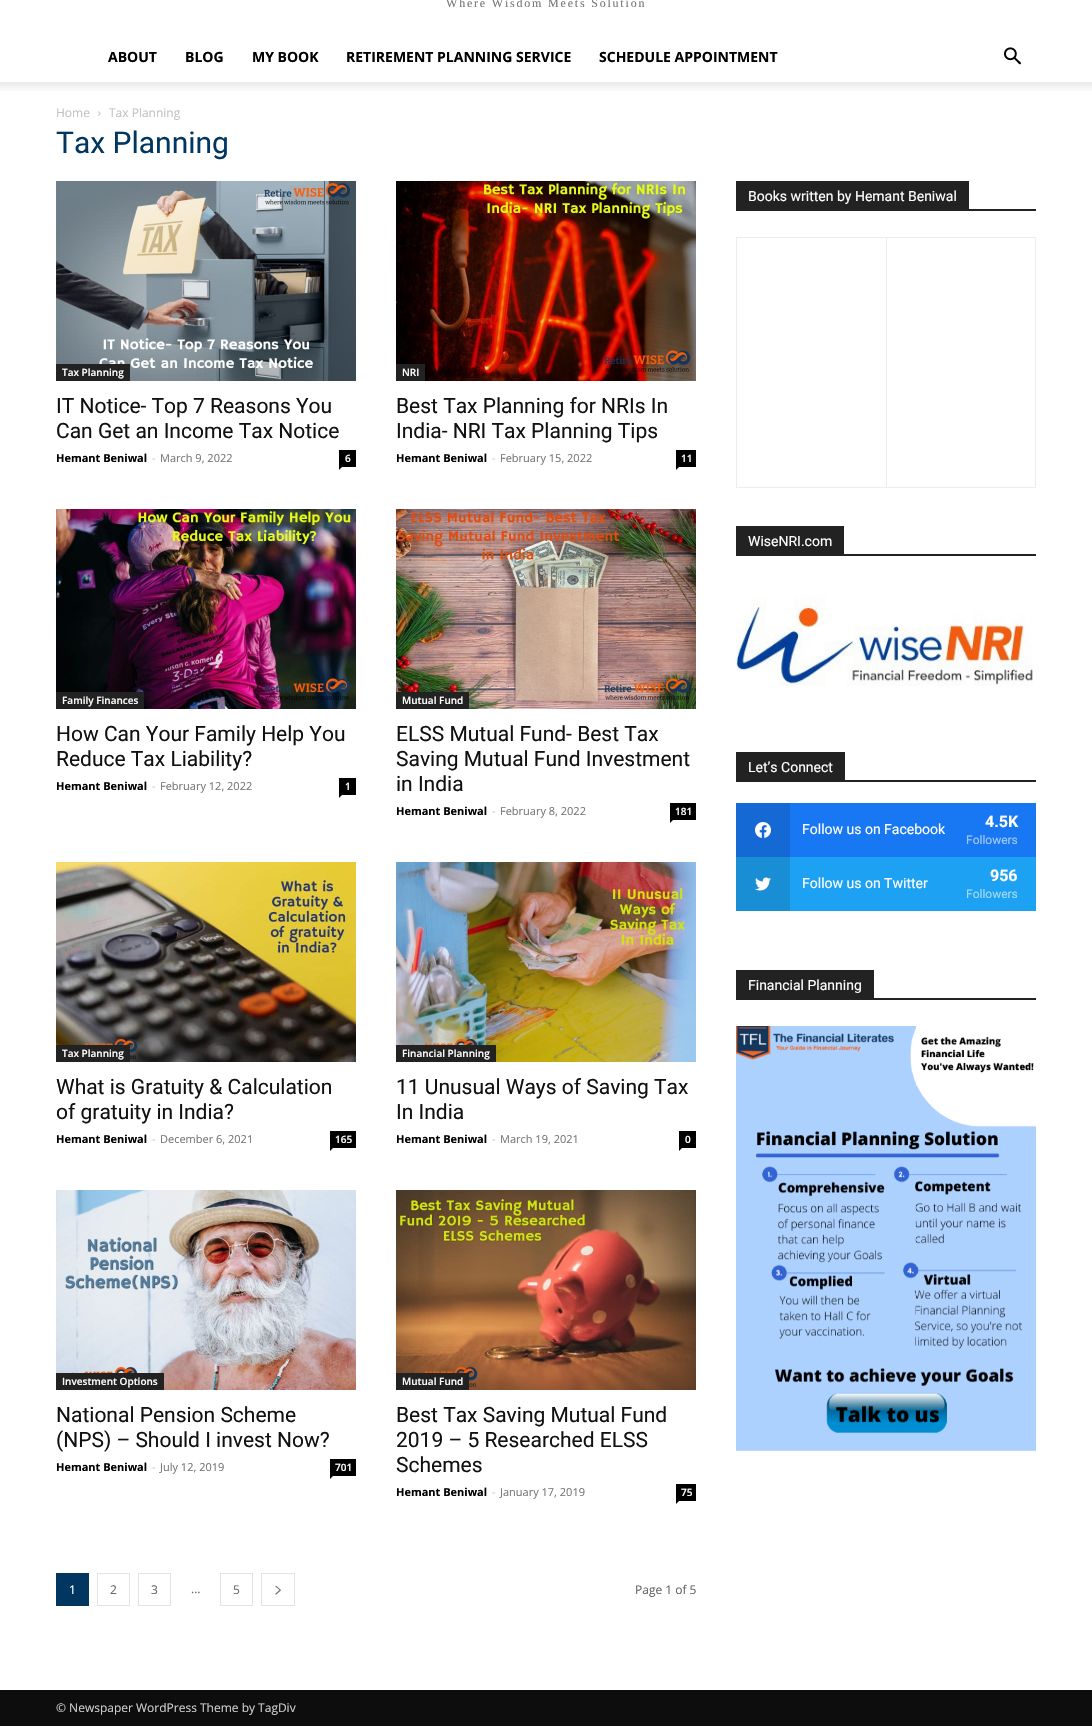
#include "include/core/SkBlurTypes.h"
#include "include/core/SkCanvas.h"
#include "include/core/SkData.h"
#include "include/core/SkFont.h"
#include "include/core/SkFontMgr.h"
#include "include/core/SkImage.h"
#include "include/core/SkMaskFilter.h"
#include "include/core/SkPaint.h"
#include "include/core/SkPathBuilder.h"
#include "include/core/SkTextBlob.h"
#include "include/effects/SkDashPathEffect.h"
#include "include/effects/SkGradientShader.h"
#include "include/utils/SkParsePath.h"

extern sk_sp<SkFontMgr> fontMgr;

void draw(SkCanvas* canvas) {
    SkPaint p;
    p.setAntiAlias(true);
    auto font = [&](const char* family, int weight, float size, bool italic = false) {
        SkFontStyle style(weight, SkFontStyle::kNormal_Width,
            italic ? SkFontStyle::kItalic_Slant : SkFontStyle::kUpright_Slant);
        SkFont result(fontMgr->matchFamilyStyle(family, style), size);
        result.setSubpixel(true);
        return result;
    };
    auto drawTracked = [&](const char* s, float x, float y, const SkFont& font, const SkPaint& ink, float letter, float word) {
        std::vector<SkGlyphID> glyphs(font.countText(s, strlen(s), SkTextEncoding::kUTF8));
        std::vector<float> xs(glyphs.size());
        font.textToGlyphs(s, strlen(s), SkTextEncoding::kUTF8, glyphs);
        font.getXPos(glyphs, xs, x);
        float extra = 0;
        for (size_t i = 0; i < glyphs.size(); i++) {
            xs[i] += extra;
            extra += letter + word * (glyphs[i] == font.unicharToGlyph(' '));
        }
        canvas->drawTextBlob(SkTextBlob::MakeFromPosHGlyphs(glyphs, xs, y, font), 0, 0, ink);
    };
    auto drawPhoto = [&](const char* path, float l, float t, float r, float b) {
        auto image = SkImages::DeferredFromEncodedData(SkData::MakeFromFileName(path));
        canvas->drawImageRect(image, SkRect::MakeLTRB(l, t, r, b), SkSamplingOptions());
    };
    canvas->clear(0xFFFFFFFF);
    auto font1 = font("Liberation Serif", 400, 12);
    p.setColor(0xFF767676);
    drawTracked("Where Wisdom Meets Solution", 446, 7, font1, p, 1.8f, 0);
    auto font2 = font("Open Sans", 700, 14);
    p.setColor(0xFF000000);
    {
        const struct { const char* s; float x, y; } items[] = {
            {"ABOUT", 108, 62},
            {"BLOG", 185, 62},
            {"MY BOOK", 252, 62},
            {"RETIREMENT PLANNING SERVICE", 346, 62},
            {"SCHEDULE APPOINTMENT", 599, 62},
        };
        for (auto [s, x, y] : items) {
            canvas->drawString(s, x, y, font2, p);
        }
    }
    drawPhoto("media/1.png", 1004, 47, 1021, 65);
    drawPhoto("media/2.png", 0, 82, 1092, 91);
    auto font3 = font("Open Sans", 400, 12);
    p.setColor(0xFFC3C3C3);
    canvas->drawString("Home", 56, 117, font3, p);
    drawPhoto("media/3.png", 98, 111, 101, 116);
    canvas->drawString("Tax Planning", 109, 117, font3, p);
    auto font4 = font("Roboto", 400, 30);
    p.setColor(0xFF00365F);
    canvas->drawString("Tax Planning", 56, 153, font4, p);
    drawPhoto("media/4.png", 56, 181, 356, 381);
    p.setColor(0xFF222222);
    canvas->drawRect(SkRect::MakeLTRB(56, 364, 130, 381), p);
    auto font5 = font("Open Sans", 600, 10);
    p.setColor(0xFFFFFFFF);
    canvas->drawString("Tax Planning", 62, 376, font5, p);
    auto font6 = font("Roboto", 400, 21);
    p.setColor(0xFF111111);
    canvas->drawString("IT Notice- Top 7 Reasons You", 56, 413, font6, p);
    canvas->drawString("Can Get an Income Tax Notice", 56, 438, font6, p);
    auto font7 = font("Open Sans", 700, 11);
    p.setColor(0xFF000000);
    canvas->drawString("Hemant Beniwal", 56, 462, font7, p);
    auto font8 = font("Open Sans", 400, 11);
    p.setColor(0xFFCCCCCC);
    canvas->drawString("-", 152, 462, font8, p);
    p.setColor(0xFF767676);
    canvas->drawString("March 9, 2022", 160, 462, font8, p);
    p.setColor(0xFF000000);
    canvas->drawRect(SkRect::MakeLTRB(339, 450, 356, 467), p);
    p.setColor(0xFFFFFFFF);
    canvas->drawString("6", 345, 462, font5, p);
    p.setColor(0xFF000000);
    canvas->drawPath(SkPathBuilder().moveTo(339, 467).lineTo(342, 467).lineTo(339, 470).close().detach(), p);
    drawPhoto("media/5.png", 396, 181, 696, 381);
    p.setColor(0xFF222222);
    canvas->drawRect(SkRect::MakeLTRB(396, 364, 425, 381), p);
    p.setColor(0xFFFFFFFF);
    canvas->drawString("NRI", 402, 376, font5, p);
    p.setColor(0xFF111111);
    canvas->drawString("Best Tax Planning for NRIs In", 396, 413, font6, p);
    canvas->drawString("India- NRI Tax Planning Tips", 396, 438, font6, p);
    p.setColor(0xFF000000);
    canvas->drawString("Hemant Beniwal", 396, 462, font7, p);
    p.setColor(0xFFCCCCCC);
    canvas->drawString("-", 492, 462, font8, p);
    p.setColor(0xFF767676);
    canvas->drawString("February 15, 2022", 500, 462, font8, p);
    p.setColor(0xFF000000);
    canvas->drawRect(SkRect::MakeLTRB(676, 450, 696, 467), p);
    p.setColor(0xFFFFFFFF);
    canvas->drawString("11", 681, 462, font5, p);
    p.setColor(0xFF000000);
    canvas->drawPath(SkPathBuilder().moveTo(676, 467).lineTo(679, 467).lineTo(676, 470).close().detach(), p);
    drawPhoto("media/6.png", 56, 509, 356, 709);
    p.setColor(0xFF222222);
    canvas->drawRect(SkRect::MakeLTRB(56, 692, 144, 709), p);
    p.setColor(0xFFFFFFFF);
    canvas->drawString("Family Finances", 62, 704, font5, p);
    p.setColor(0xFF111111);
    canvas->drawString("How Can Your Family Help You", 56, 741, font6, p);
    canvas->drawString("Reduce Tax Liability?", 56, 766, font6, p);
    p.setColor(0xFF000000);
    canvas->drawString("Hemant Beniwal", 56, 790, font7, p);
    p.setColor(0xFFCCCCCC);
    canvas->drawString("-", 152, 790, font8, p);
    p.setColor(0xFF767676);
    canvas->drawString("February 12, 2022", 160, 790, font8, p);
    p.setColor(0xFF000000);
    canvas->drawRect(SkRect::MakeLTRB(339, 778, 356, 795), p);
    p.setColor(0xFFFFFFFF);
    canvas->drawString("1", 345, 790, font5, p);
    p.setColor(0xFF000000);
    canvas->drawPath(SkPathBuilder().moveTo(339, 795).lineTo(342, 795).lineTo(339, 798).close().detach(), p);
    drawPhoto("media/7.png", 396, 509, 696, 709);
    p.setColor(0xFF222222);
    canvas->drawRect(SkRect::MakeLTRB(396, 692, 469, 709), p);
    p.setColor(0xFFFFFFFF);
    canvas->drawString("Mutual Fund", 402, 704, font5, p);
    p.setColor(0xFF111111);
    {
        const struct { const char* s; float x, y; } items[] = {
            {"ELSS Mutual Fund- Best Tax", 396, 741},
            {"Saving Mutual Fund Investment", 396, 766},
            {"in India", 396, 791},
        };
        for (auto [s, x, y] : items) {
            canvas->drawString(s, x, y, font6, p);
        }
    }
    p.setColor(0xFF000000);
    canvas->drawString("Hemant Beniwal", 396, 815, font7, p);
    p.setColor(0xFFCCCCCC);
    canvas->drawString("-", 492, 815, font8, p);
    p.setColor(0xFF767676);
    canvas->drawString("February 8, 2022", 500, 815, font8, p);
    p.setColor(0xFF000000);
    canvas->drawRect(SkRect::MakeLTRB(670, 803, 696, 820), p);
    p.setColor(0xFFFFFFFF);
    canvas->drawString("181", 675, 815, font5, p);
    p.setColor(0xFF000000);
    canvas->drawPath(SkPathBuilder().moveTo(670, 820).lineTo(673, 820).lineTo(670, 823).close().detach(), p);
    drawPhoto("media/8.png", 56, 862, 356, 1062);
    p.setColor(0xFF222222);
    canvas->drawRect(SkRect::MakeLTRB(56, 1045, 130, 1062), p);
    p.setColor(0xFFFFFFFF);
    canvas->drawString("Tax Planning", 62, 1057, font5, p);
    p.setColor(0xFF111111);
    canvas->drawString("What is Gratuity & Calculation", 56, 1094, font6, p);
    canvas->drawString("of gratuity in India?", 56, 1119, font6, p);
    p.setColor(0xFF000000);
    canvas->drawString("Hemant Beniwal", 56, 1143, font7, p);
    p.setColor(0xFFCCCCCC);
    canvas->drawString("-", 152, 1143, font8, p);
    p.setColor(0xFF767676);
    canvas->drawString("December 6, 2021", 160, 1143, font8, p);
    p.setColor(0xFF000000);
    canvas->drawRect(SkRect::MakeLTRB(330, 1131, 356, 1148), p);
    p.setColor(0xFFFFFFFF);
    canvas->drawString("165", 335, 1143, font5, p);
    p.setColor(0xFF000000);
    canvas->drawPath(SkPathBuilder().moveTo(330, 1148).lineTo(333, 1148).lineTo(330, 1151).close().detach(), p);
    drawPhoto("media/9.png", 396, 862, 696, 1062);
    p.setColor(0xFF222222);
    canvas->drawRect(SkRect::MakeLTRB(396, 1045, 496, 1062), p);
    p.setColor(0xFFFFFFFF);
    canvas->drawString("Financial Planning", 402, 1057, font5, p);
    p.setColor(0xFF111111);
    canvas->drawString("11 Unusual Ways of Saving Tax", 396, 1094, font6, p);
    canvas->drawString("In India", 396, 1119, font6, p);
    p.setColor(0xFF000000);
    canvas->drawString("Hemant Beniwal", 396, 1143, font7, p);
    p.setColor(0xFFCCCCCC);
    canvas->drawString("-", 492, 1143, font8, p);
    p.setColor(0xFF767676);
    canvas->drawString("March 19, 2021", 500, 1143, font8, p);
    p.setColor(0xFF000000);
    canvas->drawRect(SkRect::MakeLTRB(679, 1131, 696, 1148), p);
    p.setColor(0xFFFFFFFF);
    canvas->drawString("0", 685, 1143, font5, p);
    p.setColor(0xFF000000);
    canvas->drawPath(SkPathBuilder().moveTo(679, 1148).lineTo(682, 1148).lineTo(679, 1151).close().detach(), p);
    drawPhoto("media/10.png", 56, 1190, 356, 1390);
    p.setColor(0xFF222222);
    canvas->drawRect(SkRect::MakeLTRB(56, 1373, 164, 1390), p);
    p.setColor(0xFFFFFFFF);
    canvas->drawString("Investment Options", 62, 1385, font5, p);
    p.setColor(0xFF111111);
    canvas->drawString("National Pension Scheme", 56, 1422, font6, p);
    canvas->drawString("(NPS) – Should I invest Now?", 56, 1447, font6, p);
    p.setColor(0xFF000000);
    canvas->drawString("Hemant Beniwal", 56, 1471, font7, p);
    p.setColor(0xFFCCCCCC);
    canvas->drawString("-", 152, 1471, font8, p);
    p.setColor(0xFF767676);
    canvas->drawString("July 12, 2019", 160, 1471, font8, p);
    p.setColor(0xFF000000);
    canvas->drawRect(SkRect::MakeLTRB(330, 1459, 356, 1476), p);
    p.setColor(0xFFFFFFFF);
    canvas->drawString("701", 335, 1471, font5, p);
    p.setColor(0xFF000000);
    canvas->drawPath(SkPathBuilder().moveTo(330, 1476).lineTo(333, 1476).lineTo(330, 1479).close().detach(), p);
    drawPhoto("media/11.png", 396, 1190, 696, 1390);
    p.setColor(0xFF222222);
    canvas->drawRect(SkRect::MakeLTRB(396, 1373, 469, 1390), p);
    p.setColor(0xFFFFFFFF);
    canvas->drawString("Mutual Fund", 402, 1385, font5, p);
    p.setColor(0xFF111111);
    {
        const struct { const char* s; float x, y; } items[] = {
            {"Best Tax Saving Mutual Fund", 396, 1422},
            {"2019 – 5 Researched ELSS", 396, 1447},
            {"Schemes", 396, 1472},
        };
        for (auto [s, x, y] : items) {
            canvas->drawString(s, x, y, font6, p);
        }
    }
    p.setColor(0xFF000000);
    canvas->drawString("Hemant Beniwal", 396, 1496, font7, p);
    p.setColor(0xFFCCCCCC);
    canvas->drawString("-", 492, 1496, font8, p);
    p.setColor(0xFF767676);
    canvas->drawString("January 17, 2019", 500, 1496, font8, p);
    p.setColor(0xFF000000);
    canvas->drawRect(SkRect::MakeLTRB(676, 1484, 696, 1501), p);
    p.setColor(0xFFFFFFFF);
    canvas->drawString("75", 681, 1496, font5, p);
    p.setColor(0xFF000000);
    canvas->drawPath(SkPathBuilder().moveTo(676, 1501).lineTo(679, 1501).lineTo(676, 1504).close().detach(), p);
    p.setColor(0xFF00365F);
    canvas->drawRect(SkRect::MakeLTRB(56, 1573, 89, 1606), p);
    p.setColor(0xFFFFFFFF);
    canvas->drawString("1", 69, 1594, font3, p);
    p.setStyle(SkPaint::kStroke_Style);
    p.setStrokeWidth(1);
    p.setColor(0xFFE3E3E3);
    canvas->drawRect(SkRect::MakeLTRB(97.5f, 1573.5f, 129.5f, 1605.5f), p);
    p.setStyle(SkPaint::kFill_Style);
    p.setColor(0xFF666666);
    canvas->drawString("2", 110, 1594, font3, p);
    p.setStyle(SkPaint::kStroke_Style);
    p.setColor(0xFFE3E3E3);
    canvas->drawRect(SkRect::MakeLTRB(138.5f, 1573.5f, 170.5f, 1605.5f), p);
    p.setStyle(SkPaint::kFill_Style);
    p.setColor(0xFF666666);
    canvas->drawString("3", 151, 1594, font3, p);
    canvas->drawString("...", 191, 1593, font3, p);
    p.setStyle(SkPaint::kStroke_Style);
    p.setColor(0xFFE3E3E3);
    canvas->drawRect(SkRect::MakeLTRB(220.5f, 1573.5f, 252.5f, 1605.5f), p);
    p.setStyle(SkPaint::kFill_Style);
    p.setColor(0xFF666666);
    canvas->drawString("5", 233, 1594, font3, p);
    p.setStyle(SkPaint::kStroke_Style);
    p.setColor(0xFFE3E3E3);
    canvas->drawRect(SkRect::MakeLTRB(261.5f, 1573.5f, 294.5f, 1605.5f), p);
    drawPhoto("media/12.png", 275, 1585, 281, 1595);
    p.setStyle(SkPaint::kFill_Style);
    p.setColor(0xFF666666);
    canvas->drawString("Page 1 of 5", 635, 1594, font3, p);
    p.setColor(0xFF222222);
    canvas->drawRect(SkRect::MakeLTRB(736, 209, 1036, 211), p);
    canvas->drawRect(SkRect::MakeLTRB(736, 181, 969, 209), p);
    auto font9 = font("Roboto", 400, 14);
    p.setColor(0xFFFFFFFF);
    canvas->drawString("Books written by Hemant Beniwal", 748, 201, font9, p);
    {
        const struct { float l, t, r, b; SkColor color; } items[] = {
            {886, 237, 1036, 238, 0xFFEDEDED},
            {1035, 237, 1036, 488, 0xFFEDEDED},
            {886, 487, 1036, 488, 0xFFEDEDED},
            {886, 237, 887, 488, 0xFFEDEDED},
            {736, 237, 887, 238, 0xFFEDEDED},
            {736, 487, 887, 488, 0xFFEDEDED},
            {736, 237, 737, 488, 0xFFEDEDED},
            {736, 554, 1036, 556, 0xFF222222},
            {736, 526, 844, 554, 0xFF222222},
        };
        for (auto [l, t, r, b, color] : items) {
            p.setColor(color);
            canvas->drawRect(SkRect::MakeLTRB(l, t, r, b), p);
        }
    }
    p.setColor(0xFFFFFFFF);
    canvas->drawString("WiseNRI.com", 748, 546, font9, p);
    drawPhoto("media/13.png", 736, 596, 1033, 686);
    p.setColor(0xFF222222);
    canvas->drawRect(SkRect::MakeLTRB(736, 780, 1036, 782), p);
    canvas->drawRect(SkRect::MakeLTRB(736, 752, 845, 780), p);
    p.setColor(0xFFFFFFFF);
    canvas->drawString("Let’s Connect", 748, 772, font9, p);
    p.setColor(0xFF1877F2);
    canvas->drawRect(SkRect::MakeLTRB(790, 803, 1036, 857), p);
    p.setColor(0xFF1569D5);
    canvas->drawRect(SkRect::MakeLTRB(736, 803, 790, 857), p);
    drawPhoto("media/14.png", 755, 822, 771, 838);
    p.setColor(0xFFFFFFFF);
    canvas->drawString("Follow us on Facebook", 802, 834, font9, p);
    auto font10 = font("Roboto", 700, 16);
    canvas->drawString("4.5K", 985, 827, font10, p);
    auto font11 = font("Roboto", 400, 12);
    p.setColor(0xFFA3C9FA);
    canvas->drawString("Followers", 966, 844, font11, p);
    p.setColor(0xFF1DA1F2);
    canvas->drawRect(SkRect::MakeLTRB(790, 857, 1036, 911), p);
    p.setColor(0xFF1A8ED5);
    canvas->drawRect(SkRect::MakeLTRB(736, 857, 790, 911), p);
    drawPhoto("media/15.png", 755, 877, 771, 891);
    p.setColor(0xFFFFFFFF);
    canvas->drawString("Follow us on Twitter", 802, 888, font9, p);
    canvas->drawString("956", 990, 881, font10, p);
    p.setColor(0xFFA5D9FA);
    canvas->drawString("Followers", 966, 898, font11, p);
    p.setColor(0xFF222222);
    canvas->drawRect(SkRect::MakeLTRB(736, 998, 1036, 1000), p);
    canvas->drawRect(SkRect::MakeLTRB(736, 970, 874, 998), p);
    p.setColor(0xFFFFFFFF);
    canvas->drawString("Financial Planning", 748, 990, font9, p);
    drawPhoto("media/16.png", 736, 1026, 1036, 1451);
    p.setColor(0xFF0D0D0D);
    canvas->drawRect(SkRect::MakeLTRB(0, 1690, 1092, 1726), p);
    p.setColor(0xFFCCCCCC);
    canvas->drawString("© Newspaper WordPress Theme by TagDiv", 56, 1712, font3, p);
}
